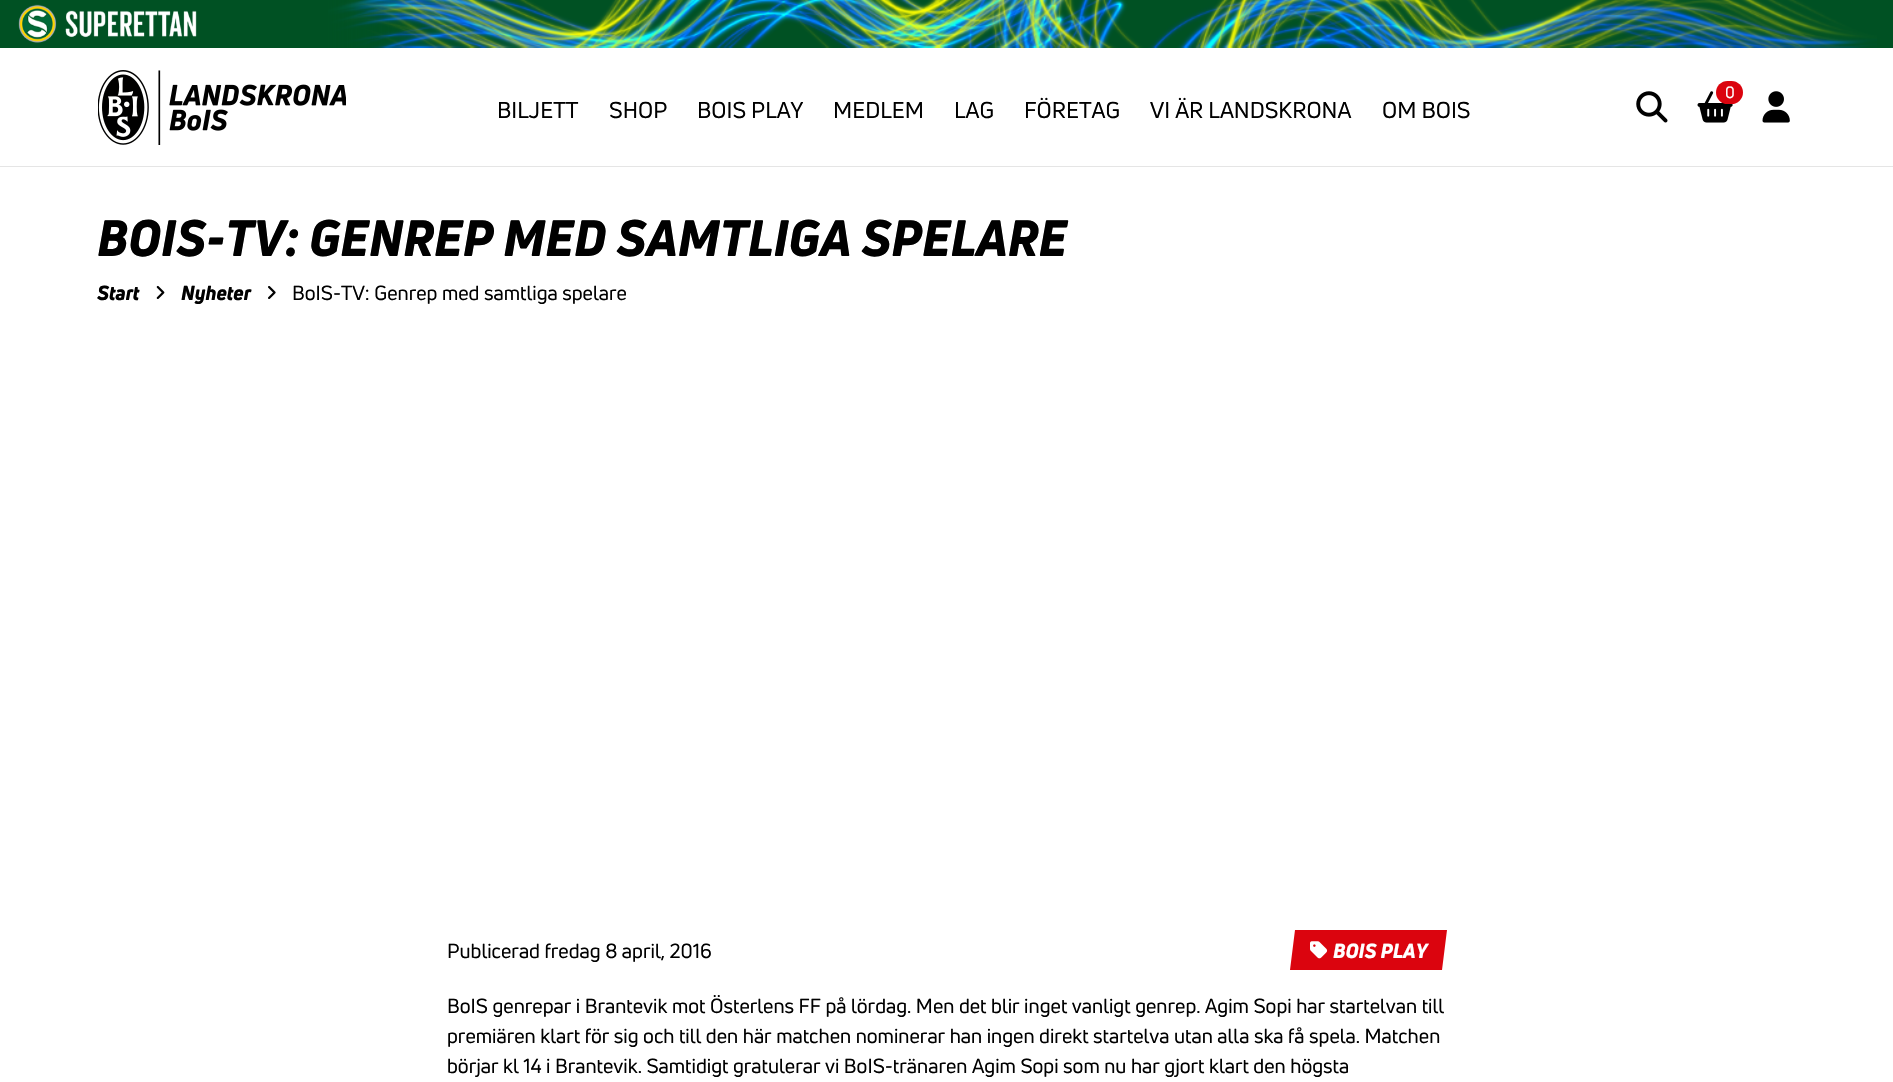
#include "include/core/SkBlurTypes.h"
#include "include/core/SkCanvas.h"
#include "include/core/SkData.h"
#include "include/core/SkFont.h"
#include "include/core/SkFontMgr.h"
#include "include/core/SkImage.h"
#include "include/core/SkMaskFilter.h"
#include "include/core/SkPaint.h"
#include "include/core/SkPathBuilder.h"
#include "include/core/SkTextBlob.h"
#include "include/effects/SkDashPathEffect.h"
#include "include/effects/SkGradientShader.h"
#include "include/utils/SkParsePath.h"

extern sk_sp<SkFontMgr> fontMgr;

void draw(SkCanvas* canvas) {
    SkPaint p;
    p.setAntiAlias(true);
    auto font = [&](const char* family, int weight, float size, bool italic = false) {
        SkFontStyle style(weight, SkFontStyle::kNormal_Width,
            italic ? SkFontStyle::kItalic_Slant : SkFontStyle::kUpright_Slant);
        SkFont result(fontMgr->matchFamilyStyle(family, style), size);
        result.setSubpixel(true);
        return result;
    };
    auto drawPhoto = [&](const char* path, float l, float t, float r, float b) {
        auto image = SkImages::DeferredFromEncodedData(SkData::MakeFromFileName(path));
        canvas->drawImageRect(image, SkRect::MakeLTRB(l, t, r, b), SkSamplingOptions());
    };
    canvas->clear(0xFFFFFFFF);
    p.setColor(0xFF005123);
    canvas->drawRect(SkRect::MakeLTRB(0, 0, 1893, 48), p);
    drawPhoto("media/1.png", 328, 0, 1877, 48);
    drawPhoto("media/2.png", 18, 4, 197, 43);
    {
        const SkColor colors[] = {0xFF005123, 0x00005123};
        const float stops[] = {0, 1};
        const SkPoint ends[] = {{273, 24}, {416, 24}};
        p.setShader(SkGradientShader::MakeLinear(ends, colors, stops, 2, SkTileMode::kClamp));
        p.setAlpha(255);
    }
    canvas->drawRect(SkRect::MakeLTRB(328, 0, 413, 48), p);
    p.setShader(nullptr);
    p.setColor(0xFFE5E5E5);
    canvas->drawRect(SkRect::MakeLTRB(0, 166, 1893, 167), p);
    drawPhoto("media/3.png", 98, 70, 346, 145);
    drawPhoto("media/4.png", 1636, 91, 1668, 123);
    drawPhoto("media/5.png", 1697, 91, 1733, 123);
    p.setColor(0xFFDB040E);
    canvas->drawRoundRect(SkRect::MakeLTRB(1716, 81, 1743, 104), 11.5f, 11.5f, p);
    auto font1 = font("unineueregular", 400, 16);
    p.setColor(0xFFFFFFFF);
    canvas->drawString("0", 1725, 98, font1, p);
    drawPhoto("media/6.png", 1762, 91, 1790, 123);
    auto font2 = font("unineueregular", 400, 22.5f);
    p.setColor(0xFF000000);
    {
        const struct { const char* s; float x, y; } items[] = {
            {"BILJETT", 497, 118},
            {"SHOP", 609, 118},
            {"BOIS PLAY", 697, 118},
            {"MEDLEM", 833, 118},
            {"LAG", 954, 118},
            {"FÖRETAG", 1024, 118},
            {"VI ÄR LANDSKRONA", 1150, 118},
            {"OM BOIS", 1382, 118},
        };
        for (auto [s, x, y] : items) {
            canvas->drawString(s, x, y, font2, p);
        }
    }
    auto font3 = font("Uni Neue", 800, 50, true);
    canvas->drawString("BOIS-TV: GENREP MED SAMTLIGA SPELARE", 97, 256, font3, p);
    auto font4 = font("Uni Neue", 800, 20, true);
    canvas->drawString("Start", 97, 300, font4, p);
    drawPhoto("media/7.png", 156, 285, 165, 299);
    canvas->drawString("Nyheter", 181, 300, font4, p);
    drawPhoto("media/8.png", 268, 286, 276, 299);
    auto font5 = font("unineueregular", 400, 20);
    canvas->drawString("BoIS-TV: Genrep med samtliga spelare", 292, 300, font5, p);
    canvas->drawString("Publicerad fredag 8 april, 2016", 447, 958, font5, p);
    p.setColor(0xFFDB040E);
    canvas->drawPath(SkPathBuilder().moveTo(1295, 930).lineTo(1290, 970).lineTo(1442, 970).lineTo(1447, 930).close().detach(), p);
    drawPhoto("media/9.png", 1310, 941, 1328, 959);
    p.setColor(0xFFFFFFFF);
    canvas->drawString("BOIS PLAY", 1333, 958, font4, p);
    p.setColor(0xFF000000);
    {
        const struct { const char* s; float x, y; } items[] = {
            {"BoIS genrepar i Brantevik mot Österlens FF på lördag. Men det blir inget vanligt genrep. Agim Sopi har startelvan till", 447, 1013},
            {"premiären klart för sig och till den här matchen nominerar han ingen direkt startelva utan alla ska få spela. Matchen", 447, 1043},
            {"börjar kl 14 i Brantevik. Samtidigt gratulerar vi BoIS-tränaren Agim Sopi som nu har gjort klart den högsta", 447, 1073},
        };
        for (auto [s, x, y] : items) {
            canvas->drawString(s, x, y, font5, p);
        }
    }
}
